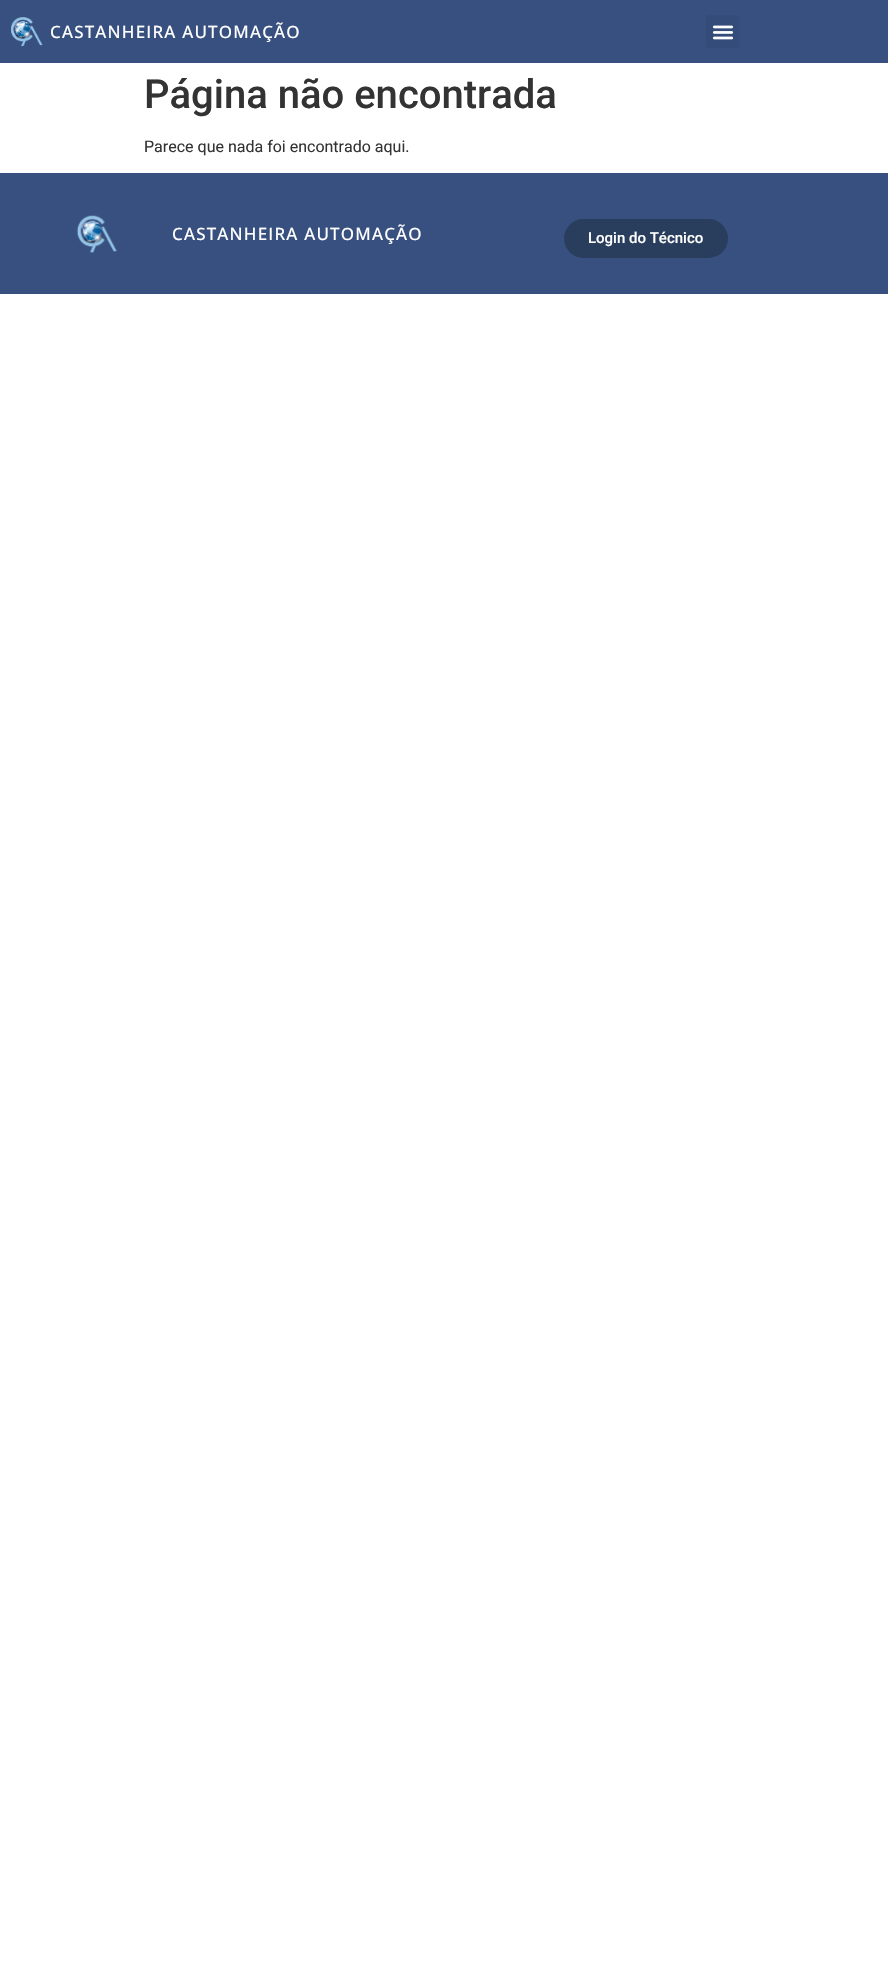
#include "include/core/SkBlurTypes.h"
#include "include/core/SkCanvas.h"
#include "include/core/SkData.h"
#include "include/core/SkFont.h"
#include "include/core/SkFontMgr.h"
#include "include/core/SkImage.h"
#include "include/core/SkMaskFilter.h"
#include "include/core/SkPaint.h"
#include "include/core/SkPathBuilder.h"
#include "include/core/SkTextBlob.h"
#include "include/effects/SkDashPathEffect.h"
#include "include/effects/SkGradientShader.h"
#include "include/utils/SkParsePath.h"

extern sk_sp<SkFontMgr> fontMgr;

void draw(SkCanvas* canvas) {
    SkPaint p;
    p.setAntiAlias(true);
    auto font = [&](const char* family, int weight, float size, bool italic = false) {
        SkFontStyle style(weight, SkFontStyle::kNormal_Width,
            italic ? SkFontStyle::kItalic_Slant : SkFontStyle::kUpright_Slant);
        SkFont result(fontMgr->matchFamilyStyle(family, style), size);
        result.setSubpixel(true);
        return result;
    };
    auto drawTracked = [&](const char* s, float x, float y, const SkFont& font, const SkPaint& ink, float letter, float word) {
        std::vector<SkGlyphID> glyphs(font.countText(s, strlen(s), SkTextEncoding::kUTF8));
        std::vector<float> xs(glyphs.size());
        font.textToGlyphs(s, strlen(s), SkTextEncoding::kUTF8, glyphs);
        font.getXPos(glyphs, xs, x);
        float extra = 0;
        for (size_t i = 0; i < glyphs.size(); i++) {
            xs[i] += extra;
            extra += letter + word * (glyphs[i] == font.unicharToGlyph(' '));
        }
        canvas->drawTextBlob(SkTextBlob::MakeFromPosHGlyphs(glyphs, xs, y, font), 0, 0, ink);
    };
    auto drawPhoto = [&](const char* path, float l, float t, float r, float b) {
        auto image = SkImages::DeferredFromEncodedData(SkData::MakeFromFileName(path));
        canvas->drawImageRect(image, SkRect::MakeLTRB(l, t, r, b), SkSamplingOptions());
    };
    canvas->clear(0xFFFFFFFF);
    p.setColor(0xFF37507F);
    canvas->drawRect(SkRect::MakeLTRB(0, 0, 888, 63), p);
    drawPhoto("media/1.png", 11, 17, 43, 46);
    auto font1 = font("Open Sans", 500, 17);
    p.setColor(0xFFFFFFFF);
    drawTracked("CASTANHEIRA AUTOMAÇÃO", 50, 38, font1, p, 1.2f, 0);
    p.setColor(0xFF344C79);
    canvas->drawRoundRect(SkRect::MakeLTRB(706, 15, 739, 48), 3, 3, p);
    drawPhoto("media/2.png", 712, 25, 734, 40);
    auto font2 = font("Roboto", 500, 40);
    p.setColor(0xFF333333);
    canvas->drawString("Página não encontrada", 144, 108, font2, p);
    auto font3 = font("Roboto", 400, 16);
    canvas->drawString("Parece que nada foi encontrado aqui.", 144, 152, font3, p);
    p.setColor(0xFF37507F);
    canvas->drawRect(SkRect::MakeLTRB(0, 173, 888, 294), p);
    drawPhoto("media/3.png", 76, 215, 117, 253);
    p.setColor(0xFFFFFFFF);
    drawTracked("CASTANHEIRA AUTOMAÇÃO", 172, 240, font1, p, 1.2f, 0);
    p.setColor(0xFF293D5C);
    canvas->drawRoundRect(SkRect::MakeLTRB(564, 219, 728, 258), 19.5f, 19.5f, p);
    auto font4 = font("Roboto", 500, 15);
    p.setColor(0xFFFFFFFF);
    canvas->drawString("Login do Técnico", 588, 243, font4, p);
}
